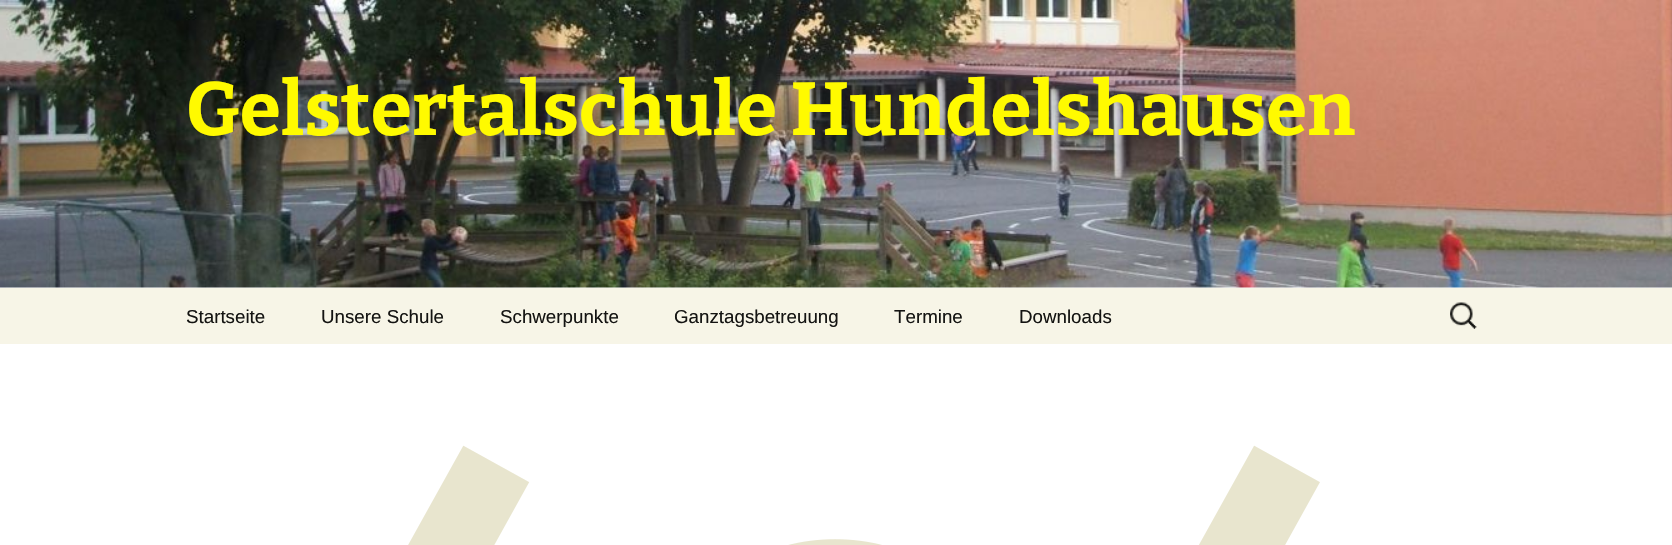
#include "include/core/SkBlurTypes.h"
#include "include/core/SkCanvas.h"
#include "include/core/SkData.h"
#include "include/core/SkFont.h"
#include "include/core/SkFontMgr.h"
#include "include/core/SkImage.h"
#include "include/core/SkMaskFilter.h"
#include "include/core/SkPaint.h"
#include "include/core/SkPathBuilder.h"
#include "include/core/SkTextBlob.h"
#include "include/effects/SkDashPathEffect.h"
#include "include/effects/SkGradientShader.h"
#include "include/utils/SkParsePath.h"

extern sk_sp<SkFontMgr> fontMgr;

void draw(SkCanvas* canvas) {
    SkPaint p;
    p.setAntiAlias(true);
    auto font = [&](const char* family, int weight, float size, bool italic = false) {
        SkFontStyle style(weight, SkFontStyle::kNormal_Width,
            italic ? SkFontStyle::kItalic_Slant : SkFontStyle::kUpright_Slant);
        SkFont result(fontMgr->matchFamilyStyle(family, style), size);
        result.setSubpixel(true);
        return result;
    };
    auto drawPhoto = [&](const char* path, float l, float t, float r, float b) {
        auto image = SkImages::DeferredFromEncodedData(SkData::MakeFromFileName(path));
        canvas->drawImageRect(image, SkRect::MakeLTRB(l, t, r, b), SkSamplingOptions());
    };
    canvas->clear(0xFFFFFFFF);
    drawPhoto("media/1.png", 0, 0, 1672, 288);
    auto font1 = font("Bitter", 700, 75);
    p.setColor(0xFFFFFA00);
    canvas->drawString("Gelstertalschule Hundelshausen", 186, 135, font1, p);
    p.setColor(0xFFF7F5E7);
    canvas->drawRect(SkRect::MakeLTRB(0, 288, 1672, 344), p);
    auto font2 = font("Liberation Sans", 400, 18.75f);
    p.setColor(0xFF141412);
    {
        const struct { const char* s; float x, y; } items[] = {
            {"Startseite", 186, 323},
            {"Unsere Schule", 321, 323},
            {"Schwerpunkte", 500, 323},
            {"Ganztagsbetreuung", 674, 323},
            {"Termine", 894, 323},
            {"Downloads", 1019, 323},
        };
        for (auto [s, x, y] : items) {
            canvas->drawString(s, x, y, font2, p);
        }
    }
    drawPhoto("media/2.png", 1450, 302, 1477, 329);
    drawPhoto("media/3.png", 408, 445, 1320, 545);
}
